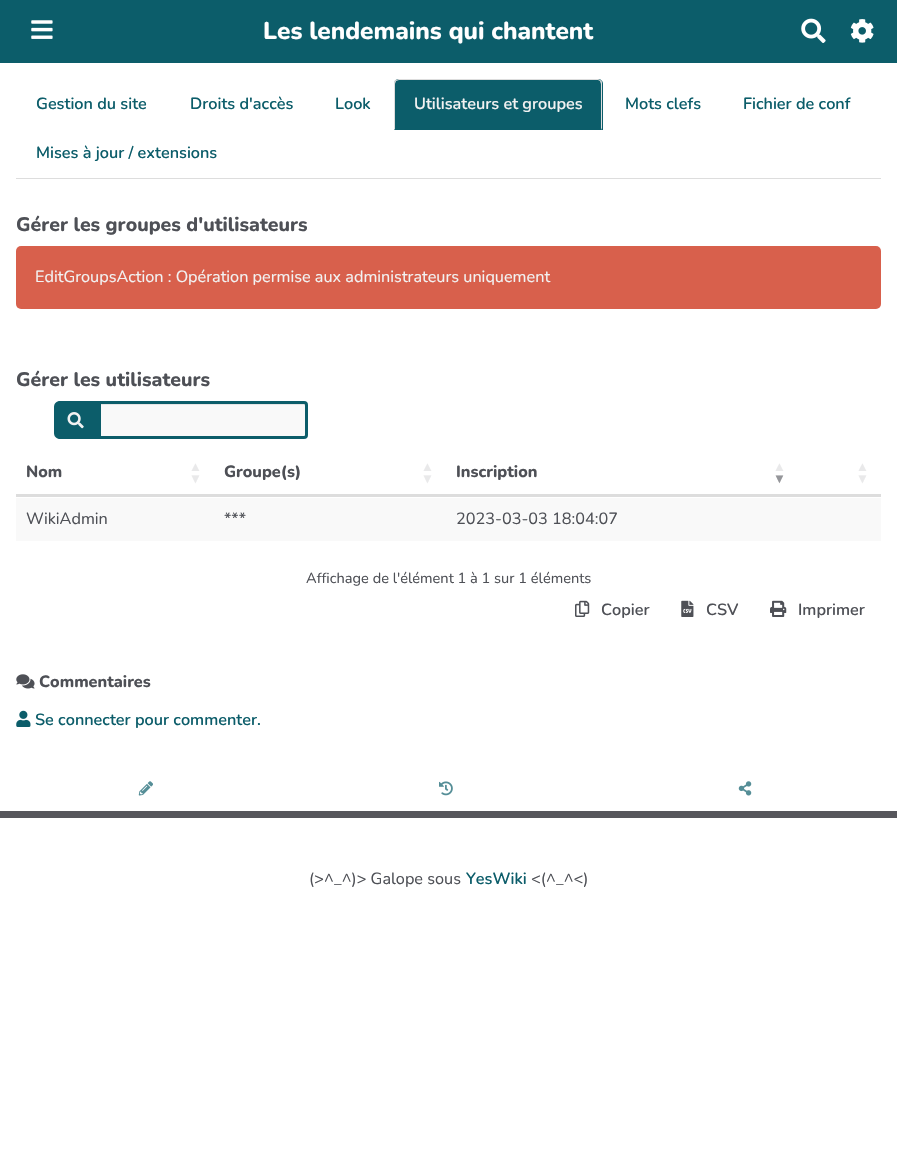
#include "include/core/SkBlurTypes.h"
#include "include/core/SkCanvas.h"
#include "include/core/SkData.h"
#include "include/core/SkFont.h"
#include "include/core/SkFontMgr.h"
#include "include/core/SkImage.h"
#include "include/core/SkMaskFilter.h"
#include "include/core/SkPaint.h"
#include "include/core/SkPathBuilder.h"
#include "include/core/SkTextBlob.h"
#include "include/effects/SkDashPathEffect.h"
#include "include/effects/SkGradientShader.h"
#include "include/utils/SkParsePath.h"

extern sk_sp<SkFontMgr> fontMgr;

void draw(SkCanvas* canvas) {
    SkPaint p;
    p.setAntiAlias(true);
    auto font = [&](const char* family, int weight, float size, bool italic = false) {
        SkFontStyle style(weight, SkFontStyle::kNormal_Width,
            italic ? SkFontStyle::kItalic_Slant : SkFontStyle::kUpright_Slant);
        SkFont result(fontMgr->matchFamilyStyle(family, style), size);
        result.setSubpixel(true);
        return result;
    };
    auto drawPhoto = [&](const char* path, float l, float t, float r, float b) {
        auto image = SkImages::DeferredFromEncodedData(SkData::MakeFromFileName(path));
        canvas->drawImageRect(image, SkRect::MakeLTRB(l, t, r, b), SkSamplingOptions());
    };
    canvas->clear(0xFFFFFFFF);
    p.setColor(0xFF0C5D6A);
    canvas->drawRect(SkRect::MakeLTRB(0, 0, 897, 63), p);
    drawPhoto("media/1.png", 31, 20, 53, 39);
    auto font1 = font("Nunito", 800, 24.4f);
    p.setColor(0xFFFFFFFF);
    canvas->drawString("Les lendemains qui chantent", 263, 39, font1, p);
    drawPhoto("media/2.png", 801, 18, 826, 43);
    drawPhoto("media/3.png", 850, 19, 874, 43);
    p.setColor(0xFFDDDDDD);
    canvas->drawRect(SkRect::MakeLTRB(16, 178, 881, 179), p);
    auto font2 = font("Nunito", 600, 16.25f);
    p.setColor(0xFF0C5D6A);
    {
        const struct { const char* s; float x, y; } items[] = {
            {"Gestion du site", 36, 109},
            {"Droits d'accès", 190, 109},
            {"Look", 335, 109},
        };
        for (auto [s, x, y] : items) {
            canvas->drawString(s, x, y, font2, p);
        }
    }
    canvas->drawPath(SkPathBuilder().moveTo(399, 79).lineTo(598, 79).cubicTo(601, 79, 603, 81, 603, 84).lineTo(603, 130).lineTo(394, 130).lineTo(394, 84).cubicTo(394, 81, 396, 79, 399, 79).close().detach(), p);
    p.setColor(0xFFDDDDDD);
    canvas->drawPath(SkPathBuilder().moveTo(399, 79).cubicTo(398, 79, 396, 80, 395, 80).lineTo(396, 81).lineTo(399, 80).lineTo(598, 80).lineTo(600, 81).lineTo(601, 80).cubicTo(600, 80, 599, 79, 598, 79).close().detach(), p);
    canvas->drawPath(SkPathBuilder().moveTo(602, 130).lineTo(602, 84).cubicTo(602, 83, 602, 81, 601, 80).lineTo(600, 81).lineTo(601, 84).lineTo(601, 128).close().detach(), p);
    canvas->drawPath(SkPathBuilder().moveTo(395, 80).cubicTo(394, 81, 394, 82, 394, 84).lineTo(394, 130).lineTo(395, 129).lineTo(395, 84).cubicTo(395, 83, 396, 82, 396, 81).close().detach(), p);
    p.setColor(0xFFF2F2F2);
    canvas->drawString("Utilisateurs et groupes", 414, 109, font2, p);
    p.setColor(0xFF0C5D6A);
    {
        const struct { const char* s; float x, y; } items[] = {
            {"Mots clefs", 625, 109},
            {"Fichier de conf", 743, 109},
            {"Mises à jour / extensions", 36, 158},
        };
        for (auto [s, x, y] : items) {
            canvas->drawString(s, x, y, font2, p);
        }
    }
    auto font3 = font("Nunito", 800, 19.5f);
    p.setColor(0xFF4E5056);
    canvas->drawString("Gérer les groupes d'utilisateurs", 16, 231, font3, p);
    p.setColor(0xFFD8604C);
    canvas->drawRoundRect(SkRect::MakeLTRB(16, 246, 881, 309), 5, 5, p);
    auto font4 = font("Nunito", 400, 16.25f);
    p.setColor(0xFFF2F2F2);
    canvas->drawString("EditGroupsAction : Opération permise aux administrateurs uniquement", 35, 282, font4, p);
    p.setColor(0xFF4E5056);
    canvas->drawString("Gérer les utilisateurs", 16, 386, font3, p);
    p.setColor(0xFF0C5D6A);
    canvas->drawPath(SkPathBuilder().moveTo(60, 401).lineTo(98, 401).lineTo(98, 439).lineTo(60, 439).cubicTo(56.5f, 439, 54, 436.5f, 54, 433).lineTo(54, 407).cubicTo(54, 403.5f, 56.5f, 401, 60, 401).close().detach(), p);
    drawPhoto("media/4.png", 67, 412, 84, 429);
    p.setColor(0xFFF9F9F9);
    canvas->drawPath(SkPathBuilder().moveTo(98, 401).lineTo(304, 401).cubicTo(306, 401, 308, 403, 308, 405).lineTo(308, 435).cubicTo(308, 437, 306, 439, 304, 439).lineTo(98, 439).close().detach(), p);
    p.setColor(0xFFE6E6E6);
    canvas->drawPath(SkPathBuilder().moveTo(100, 405).lineTo(304, 405).lineTo(305, 406).lineTo(305, 404).lineTo(100, 404).close().detach(), p);
    p.setStyle(SkPaint::kStroke_Style);
    p.setStrokeWidth(3);
    p.setColor(0xFF0C5D6A);
    canvas->drawPath(SkPathBuilder().moveTo(99.5f, 402.5f).lineTo(304, 402.5f).cubicTo(305.5f, 402.5f, 306.5f, 403.5f, 306.5f, 405).lineTo(306.5f, 435).cubicTo(306.5f, 436.5f, 305.5f, 437.5f, 304, 437.5f).lineTo(99.5f, 437.5f).close().detach(), p);
    p.setStyle(SkPaint::kFill_Style);
    p.setColor(0xFFDDDDDD);
    canvas->drawRect(SkRect::MakeLTRB(16, 494, 881, 497), p);
    auto font5 = font("Nunito", 800, 16.25f);
    p.setColor(0xFF4E5056);
    canvas->drawString("Nom", 26, 477, font5, p);
    auto font6 = font("Liberation Sans", 700, 13);
    p.setColor(0xFFE9E9EA);
    canvas->drawString("▲", 189, 471, font6, p);
    canvas->drawString("▼", 189, 483, font6, p);
    p.setColor(0xFF4E5056);
    canvas->drawString("Groupe(s)", 224, 477, font5, p);
    p.setColor(0xFFE9E9EA);
    canvas->drawString("▲", 421, 471, font6, p);
    canvas->drawString("▼", 421, 483, font6, p);
    p.setColor(0xFF4E5056);
    canvas->drawString("Inscription", 456, 477, font5, p);
    p.setColor(0xFFE9E9EA);
    canvas->drawString("▲", 773, 471, font6, p);
    p.setColor(0xFF95969A);
    canvas->drawString("▼", 773, 483, font6, p);
    p.setColor(0xFFE9E9EA);
    canvas->drawString("▲", 856, 471, font6, p);
    canvas->drawString("▼", 856, 483, font6, p);
    p.setColor(0xFFF9F9F9);
    canvas->drawRect(SkRect::MakeLTRB(16, 498, 881, 541), p);
    p.setColor(0xFF4E5056);
    {
        const struct { const char* s; float x, y; } items[] = {
            {"WikiAdmin", 26, 524},
            {"***", 224, 524},
            {"2023-03-03 18:04:07", 456, 524},
        };
        for (auto [s, x, y] : items) {
            canvas->drawString(s, x, y, font4, p);
        }
    }
    auto font7 = font("Nunito", 400, 14.6f);
    canvas->drawString("Affichage de l'élément 1 à 1 sur 1 éléments", 306, 583, font7, p);
    drawPhoto("media/5.png", 575, 600, 590, 617);
    canvas->drawString("Copier", 601, 615, font2, p);
    drawPhoto("media/6.png", 681, 600, 694, 617);
    canvas->drawString("CSV", 706, 615, font2, p);
    drawPhoto("media/7.png", 770, 600, 787, 617);
    canvas->drawString("Imprimer", 798, 615, font2, p);
    drawPhoto("media/8.png", 16, 674, 35, 689);
    canvas->drawString("Commentaires", 39, 687, font5, p);
    drawPhoto("media/9.png", 16, 710, 31, 727);
    p.setColor(0xFF0C5D6A);
    canvas->drawString("Se connecter pour commenter.", 35, 725, font2, p);
    drawPhoto("media/10.png", 138, 781, 153, 796);
    drawPhoto("media/11.png", 439, 781, 453, 796);
    drawPhoto("media/12.png", 738, 781, 752, 796);
    p.setColor(0xFF57575C);
    canvas->drawRect(SkRect::MakeLTRB(0, 811, 897, 818), p);
    p.setColor(0xFF4E5056);
    canvas->drawString("(>^_^)> Galope sous", 309, 884, font4, p);
    p.setColor(0xFF0C5D6A);
    canvas->drawString("YesWiki", 466, 884, font2, p);
    p.setColor(0xFF4E5056);
    canvas->drawString("<(^_^<)", 531, 884, font4, p);
}
